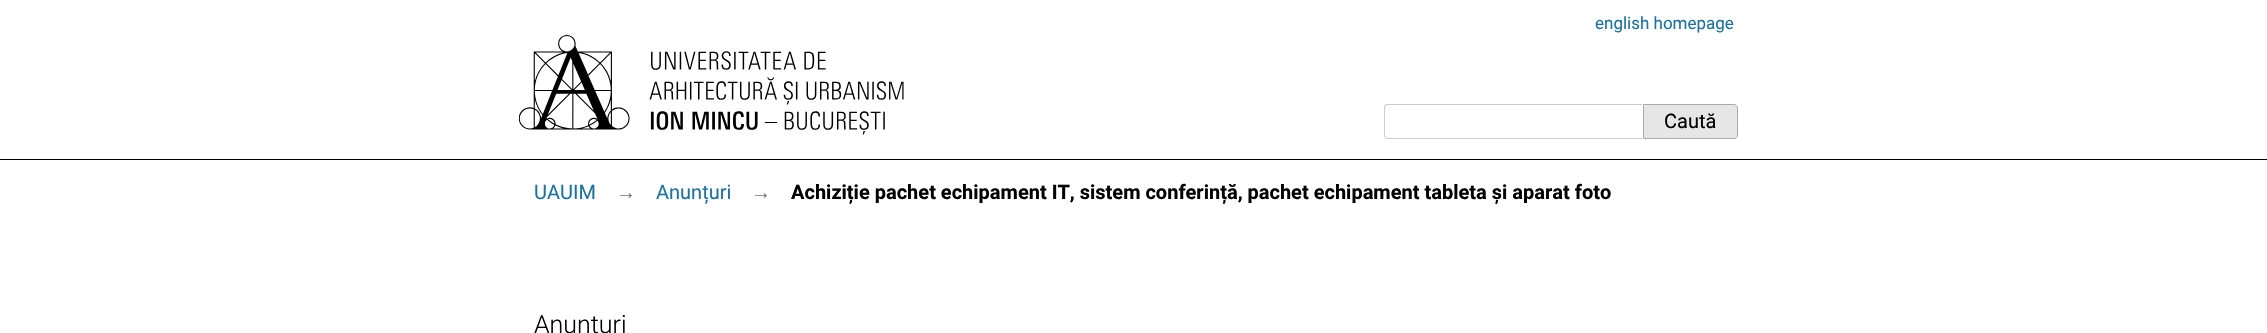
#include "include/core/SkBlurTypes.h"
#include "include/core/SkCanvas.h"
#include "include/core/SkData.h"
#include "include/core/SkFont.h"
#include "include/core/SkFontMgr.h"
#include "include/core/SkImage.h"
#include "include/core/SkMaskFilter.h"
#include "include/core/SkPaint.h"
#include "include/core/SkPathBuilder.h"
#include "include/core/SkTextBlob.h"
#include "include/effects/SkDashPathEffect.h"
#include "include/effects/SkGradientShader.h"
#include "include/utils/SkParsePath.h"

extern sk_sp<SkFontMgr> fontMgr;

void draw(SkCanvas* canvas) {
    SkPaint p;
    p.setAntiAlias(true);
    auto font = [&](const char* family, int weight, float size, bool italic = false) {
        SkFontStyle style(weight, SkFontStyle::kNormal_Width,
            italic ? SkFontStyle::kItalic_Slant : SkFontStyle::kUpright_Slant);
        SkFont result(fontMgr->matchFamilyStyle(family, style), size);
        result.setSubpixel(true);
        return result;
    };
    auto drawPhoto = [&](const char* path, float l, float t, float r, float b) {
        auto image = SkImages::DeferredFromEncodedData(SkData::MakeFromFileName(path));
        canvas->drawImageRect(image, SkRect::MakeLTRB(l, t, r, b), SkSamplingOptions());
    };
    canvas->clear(0xFFFFFFFF);
    auto font1 = font("Roboto", 400, 17);
    p.setColor(0xFF1E72A0);
    canvas->drawString("english homepage", 1595, 29, font1, p);
    drawPhoto("media/1.png", 519, 35, 904, 135);
    p.setColor(0xFFCCCCCC);
    canvas->drawPath(SkPathBuilder(SkPathFillType::kEvenOdd).moveTo(1388, 104).lineTo(1642, 104).lineTo(1642, 139).lineTo(1388, 139).cubicTo(1385, 139, 1384, 137, 1384, 135).lineTo(1384, 108).cubicTo(1384, 105, 1385, 104, 1388, 104).close().moveTo(1388, 105).lineTo(1642, 105).lineTo(1642, 138).lineTo(1388, 138).cubicTo(1386, 138, 1385, 136, 1385, 135).lineTo(1385, 108).cubicTo(1385, 106, 1386, 105, 1388, 105).close().detach(), p);
    p.setColor(0xFFE6E6E6);
    canvas->drawPath(SkPathBuilder().moveTo(1643.5f, 104.5f).lineTo(1734, 104.5f).cubicTo(1736, 104.5f, 1737.5f, 106, 1737.5f, 108).lineTo(1737.5f, 135).cubicTo(1737.5f, 137, 1736, 138.5f, 1734, 138.5f).lineTo(1643.5f, 138.5f).close().detach(), p);
    p.setStyle(SkPaint::kStroke_Style);
    p.setStrokeWidth(1);
    p.setColor(0xFFAAAAAA);
    canvas->drawPath(SkPathBuilder().moveTo(1643.5f, 104.5f).lineTo(1734, 104.5f).cubicTo(1736, 104.5f, 1737.5f, 106, 1737.5f, 108).lineTo(1737.5f, 135).cubicTo(1737.5f, 137, 1736, 138.5f, 1734, 138.5f).lineTo(1643.5f, 138.5f).close().detach(), p);
    auto font2 = font("Roboto", 400, 20);
    p.setStyle(SkPaint::kFill_Style);
    p.setColor(0xFF000000);
    canvas->drawString("Caută", 1664, 128, font2, p);
    canvas->drawRect(SkRect::MakeLTRB(0, 159, 2267, 160), p);
    p.setColor(0xFF1E72A0);
    canvas->drawString("UAUIM", 534, 199, font2, p);
    auto font3 = font("Liberation Sans", 400, 20);
    p.setColor(0xFF777777);
    canvas->drawString("→", 616, 199, font3, p);
    p.setColor(0xFF1E72A0);
    canvas->drawString("Anunțuri", 656, 199, font2, p);
    p.setColor(0xFF777777);
    canvas->drawString("→", 751, 199, font3, p);
    auto font4 = font("Roboto", 700, 20);
    p.setColor(0xFF000000);
    canvas->drawString("Achiziție pachet echipament IT, sistem conferință, pachet echipament tableta și aparat foto", 791, 199, font4, p);
    auto font5 = font("Roboto", 300, 25);
    canvas->drawString("Anunțuri", 534, 333, font5, p);
}
